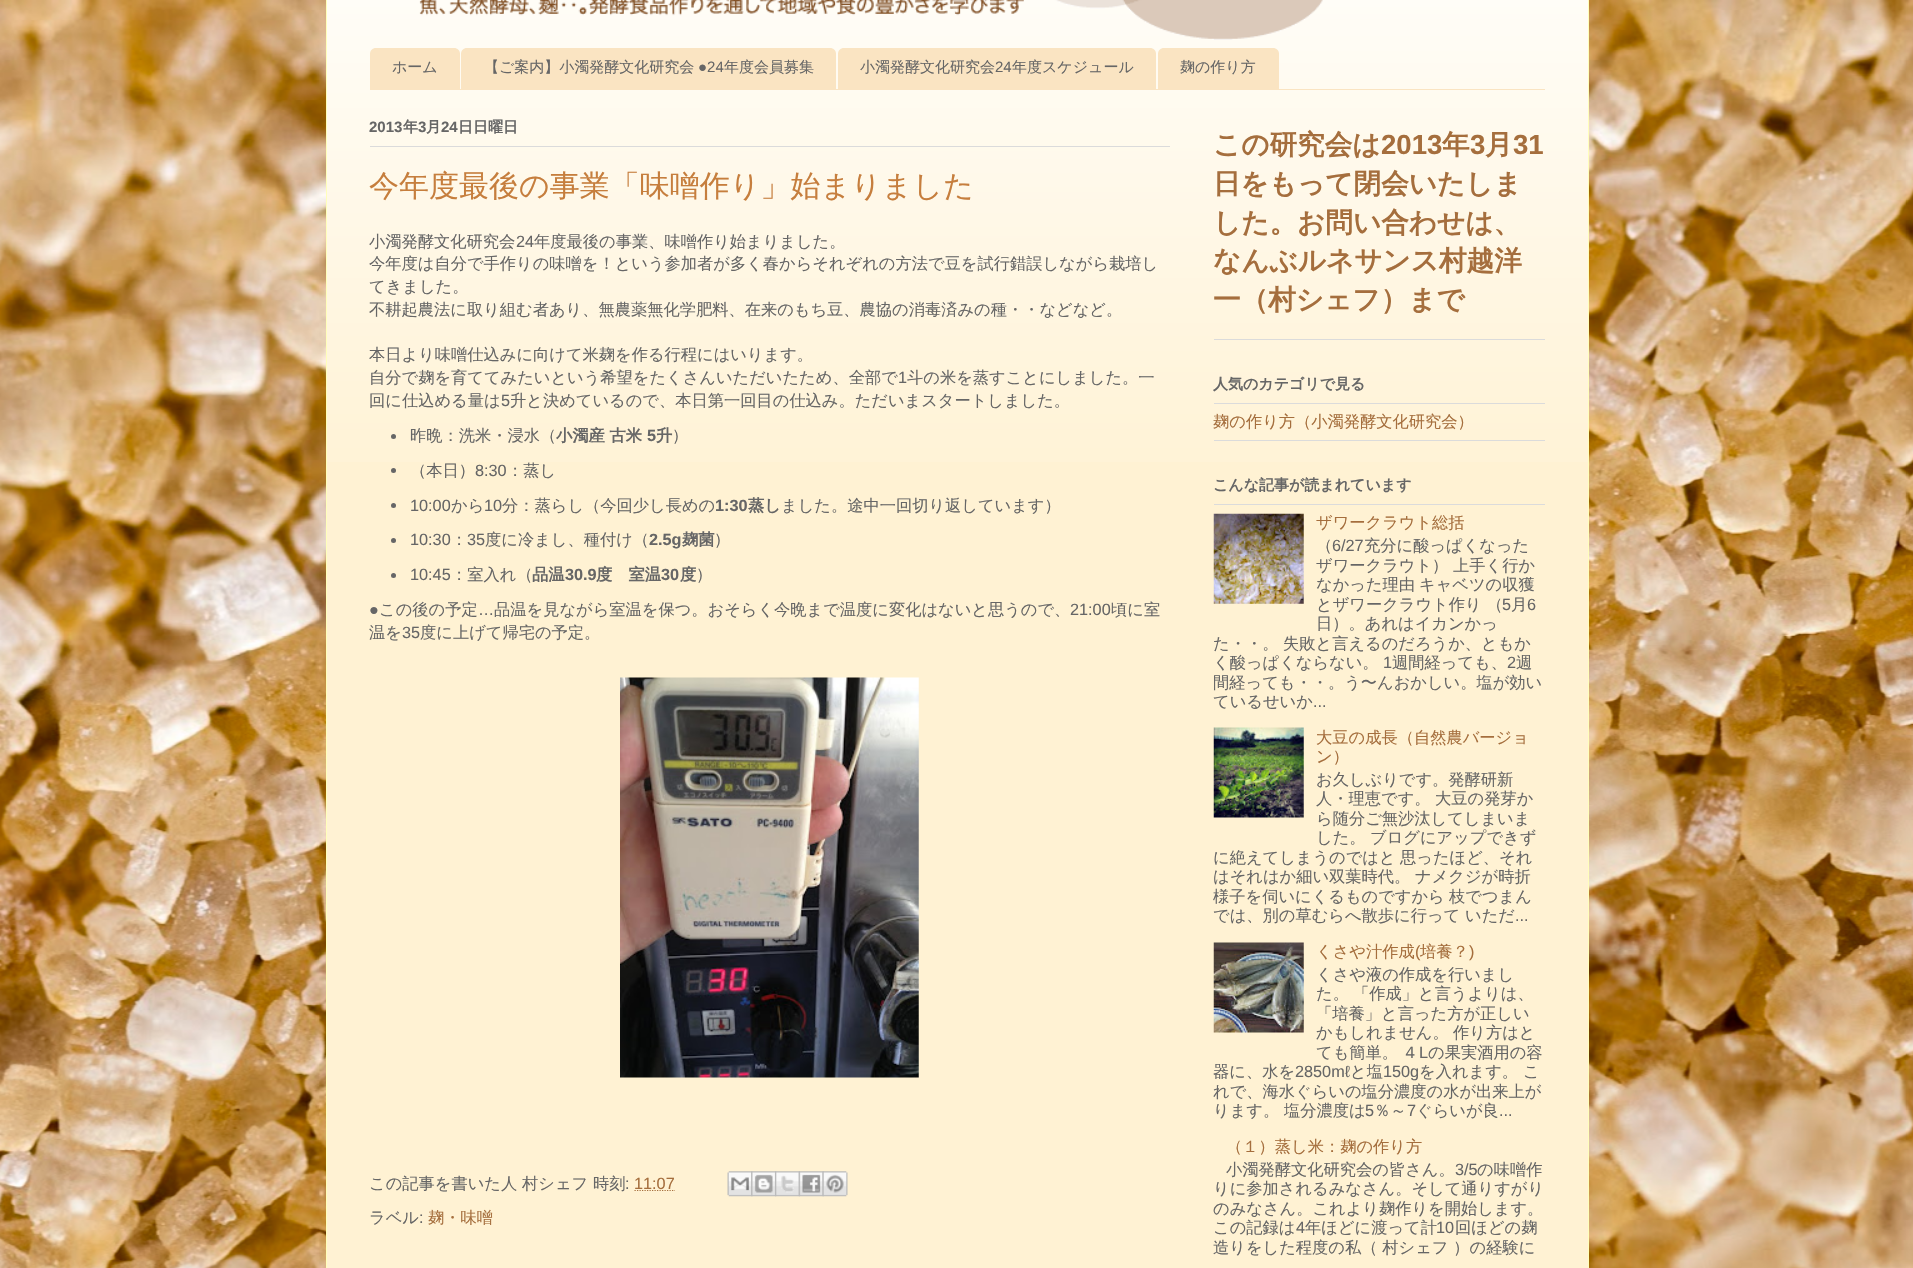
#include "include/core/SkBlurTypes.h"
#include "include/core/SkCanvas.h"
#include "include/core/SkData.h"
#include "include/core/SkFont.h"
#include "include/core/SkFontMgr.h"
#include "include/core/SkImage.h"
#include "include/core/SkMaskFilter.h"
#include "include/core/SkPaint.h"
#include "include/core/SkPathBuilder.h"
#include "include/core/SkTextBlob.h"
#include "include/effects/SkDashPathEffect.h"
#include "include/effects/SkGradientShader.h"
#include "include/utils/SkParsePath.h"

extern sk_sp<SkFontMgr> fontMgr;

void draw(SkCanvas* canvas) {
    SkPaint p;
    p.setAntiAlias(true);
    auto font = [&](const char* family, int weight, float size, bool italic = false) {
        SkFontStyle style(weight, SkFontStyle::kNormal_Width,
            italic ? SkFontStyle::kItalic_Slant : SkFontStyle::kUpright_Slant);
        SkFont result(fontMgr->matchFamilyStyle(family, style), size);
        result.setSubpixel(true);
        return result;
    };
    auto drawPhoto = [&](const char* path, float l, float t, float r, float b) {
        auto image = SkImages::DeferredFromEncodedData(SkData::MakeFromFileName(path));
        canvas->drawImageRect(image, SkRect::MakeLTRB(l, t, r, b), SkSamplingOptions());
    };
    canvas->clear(0xFFFFFFFF);
    drawPhoto("media/1.png", 0, 0, 1913, 1268);
    p.setColor(0xFFFFF2D3);
    canvas->drawRect(SkRect::MakeLTRB(327, 0, 1588, 1268), p);
    drawPhoto("media/2.png", 327, 0, 1588, 462);
    p.setColor(0xFFFFFFBB);
    canvas->drawRect(SkRect::MakeLTRB(1588, 0, 1589, 1268), p);
    canvas->drawRect(SkRect::MakeLTRB(326, 0, 327, 1268), p);
    drawPhoto("media/3.png", 419, 0, 1323, 40);
    p.setColor(0xFFFAE4C2);
    canvas->drawRect(SkRect::MakeLTRB(370, 89, 1545, 90), p);
    canvas->drawPath(SkPathBuilder().moveTo(376, 48).lineTo(454, 48).cubicTo(457.5f, 48, 460, 50.5f, 460, 54).lineTo(460, 89).lineTo(370, 89).lineTo(370, 54).cubicTo(370, 50.5f, 372.5f, 48, 376, 48).close().detach(), p);
    auto font1 = font("WenQuanYi Zen Hei", 500, 15);
    p.setColor(0xFF666666);
    canvas->drawString("ホーム", 392, 72, font1, p);
    p.setColor(0xFFFAE4C2);
    canvas->drawPath(SkPathBuilder().moveTo(467, 48).lineTo(830, 48).cubicTo(833.5f, 48, 836, 50.5f, 836, 54).lineTo(836, 89).lineTo(461, 89).lineTo(461, 54).cubicTo(461, 50.5f, 463.5f, 48, 467, 48).close().detach(), p);
    p.setColor(0xFF666666);
    canvas->drawString("【ご案内】小濁発酵文化研究会", 484, 72, font1, p);
    auto font2 = font("Liberation Sans", 400, 15);
    canvas->drawString("●24", 698, 72, font2, p);
    canvas->drawString("年度会員募集", 724, 72, font1, p);
    p.setColor(0xFFFAE4C2);
    canvas->drawPath(SkPathBuilder().moveTo(844, 48).lineTo(1150, 48).cubicTo(1153.5f, 48, 1156, 50.5f, 1156, 54).lineTo(1156, 89).lineTo(838, 89).lineTo(838, 54).cubicTo(838, 50.5f, 840.5f, 48, 844, 48).close().detach(), p);
    p.setColor(0xFF666666);
    canvas->drawString("小濁発酵文化研究会", 860, 72, font1, p);
    canvas->drawString("24", 995, 72, font2, p);
    canvas->drawString("年度スケジュール", 1012, 72, font1, p);
    p.setColor(0xFFFAE4C2);
    canvas->drawPath(SkPathBuilder().moveTo(1164, 48).lineTo(1273, 48).cubicTo(1276.5f, 48, 1279, 50.5f, 1279, 54).lineTo(1279, 89).lineTo(1158, 89).lineTo(1158, 54).cubicTo(1158, 50.5f, 1160.5f, 48, 1164, 48).close().detach(), p);
    p.setColor(0xFF666666);
    canvas->drawString("麹の作り方", 1180, 72, font1, p);
    p.setColor(0xFFDBDBDB);
    canvas->drawRect(SkRect::MakeLTRB(370, 146, 1170, 147), p);
    auto font3 = font("Liberation Sans", 700, 15);
    p.setColor(0xFF666666);
    canvas->drawString("2013", 369, 132, font3, p);
    auto font4 = font("WenQuanYi Zen Hei", 700, 15);
    canvas->drawString("年", 403, 132, font4, p);
    canvas->drawString("3", 418, 132, font3, p);
    canvas->drawString("月", 426, 132, font4, p);
    canvas->drawString("24", 441, 132, font3, p);
    canvas->drawString("日日曜日", 458, 132, font4, p);
    auto font5 = font("WenQuanYi Zen Hei", 500, 30);
    p.setColor(0xFFC67E3D);
    canvas->drawString("今年度最後の事業「味噌作り」始まりました", 369, 196, font5, p);
    auto font6 = font("WenQuanYi Zen Hei", 500, 16.25f);
    p.setColor(0xFF666666);
    canvas->drawString("小濁発酵文化研究会", 369, 247, font6, p);
    auto font7 = font("Liberation Sans", 400, 16.25f);
    canvas->drawString("24", 516, 247, font7, p);
    {
        const struct { const char* s; float x, y; } items[] = {
            {"年度最後の事業、味噌作り始まりました。", 534, 247},
            {"今年度は自分で手作りの味噌を！という参加者が多く春からそれぞれの方法で豆を試行錯誤しながら栽培し", 369, 269},
            {"てきました。", 369, 292},
            {"不耕起農法に取り組む者あり、無農薬無化学肥料、在来のもち豆、農協の消毒済みの種・・などなど。", 369, 315},
            {"本日より味噌仕込みに向けて米麹を作る行程にはいります。", 369, 360},
            {"自分で麹を育ててみたいという希望をたくさんいただいたため、全部で", 369, 383},
        };
        for (auto [s, x, y] : items) {
            canvas->drawString(s, x, y, font6, p);
        }
    }
    canvas->drawString("1", 898, 383, font7, p);
    canvas->drawString("斗の米を蒸すことにしました。一", 907, 383, font6, p);
    canvas->drawString("回に仕込める量は", 369, 406, font6, p);
    canvas->drawString("5", 501, 406, font7, p);
    canvas->drawString("升と決めているので、本日第一回目の仕込み。ただいまスタートしました。", 510, 406, font6, p);
    canvas->drawCircle(393.5f, 436.5f, 2.5f, p);
    canvas->drawString("昨晩：洗米・浸水（", 410, 441, font6, p);
    auto font8 = font("WenQuanYi Zen Hei", 700, 16.25f);
    canvas->drawString("小濁産 古米", 556, 441, font8, p);
    auto font9 = font("Liberation Sans", 700, 16.25f);
    canvas->drawString("5", 647, 441, font9, p);
    canvas->drawString("升", 656, 441, font8, p);
    canvas->drawString("）", 672, 441, font6, p);
    canvas->drawCircle(393.5f, 470.5f, 2.5f, p);
    canvas->drawString("（本日）", 410, 476, font6, p);
    canvas->drawString("8:30", 475, 476, font7, p);
    canvas->drawString("：蒸し", 507, 476, font6, p);
    canvas->drawCircle(393.5f, 505.5f, 2.5f, p);
    canvas->drawString("10:00", 410, 511, font7, p);
    canvas->drawString("から", 451, 511, font6, p);
    canvas->drawString("10", 484, 511, font7, p);
    canvas->drawString("分：蒸らし（今回少し長めの", 502, 511, font6, p);
    canvas->drawString("1:30", 715, 511, font9, p);
    canvas->drawString("蒸し", 748, 511, font8, p);
    canvas->drawString("ました。途中一回切り返しています）", 781, 511, font6, p);
    canvas->drawCircle(393.5f, 540.5f, 2.5f, p);
    canvas->drawString("10:30", 410, 545, font7, p);
    canvas->drawString("：", 451, 545, font6, p);
    canvas->drawString("35", 467, 545, font7, p);
    canvas->drawString("度に冷まし、種付け（", 485, 545, font6, p);
    canvas->drawString("2.5g", 649, 545, font9, p);
    canvas->drawString("麹菌", 682, 545, font8, p);
    canvas->drawString("）", 714, 545, font6, p);
    canvas->drawCircle(393.5f, 575.5f, 2.5f, p);
    canvas->drawString("10:45", 410, 580, font7, p);
    canvas->drawString("：室入れ（", 451, 580, font6, p);
    canvas->drawString("品温", 532, 580, font8, p);
    canvas->drawString("30.9", 565, 580, font9, p);
    canvas->drawString("度　室温", 596, 580, font8, p);
    canvas->drawString("30", 661, 580, font9, p);
    canvas->drawString("度", 680, 580, font8, p);
    canvas->drawString("）", 696, 580, font6, p);
    canvas->drawString("●", 369, 615, font7, p);
    canvas->drawString("この後の予定", 379, 615, font6, p);
    canvas->drawString("…", 478, 615, font7, p);
    canvas->drawString("品温を見ながら室温を保つ。おそらく今晩まで温度に変化はないと思うので、", 494, 615, font6, p);
    canvas->drawString("21:00", 1070, 615, font7, p);
    canvas->drawString("頃に室", 1111, 615, font6, p);
    canvas->drawString("温を", 369, 638, font6, p);
    canvas->drawString("35", 402, 638, font7, p);
    canvas->drawString("度に上げて帰宅の予定。", 420, 638, font6, p);
    drawPhoto("media/4.png", 620, 677, 919, 1078);
    {
        const struct { const char* s; float x, y; } items[] = {
            {"この記事を書いた人", 369, 1189},
            {"村シェフ", 522, 1189},
            {"時刻", 593, 1189},
        };
        for (auto [s, x, y] : items) {
            canvas->drawString(s, x, y, font6, p);
        }
    }
    canvas->drawString(":", 625, 1189, font7, p);
    p.setStyle(SkPaint::kStroke_Style);
    p.setStrokeWidth(1.2f);
    p.setColor(0xFFA56E3D);
    p.setPathEffect(SkDashPathEffect::Make({{1.25f, 1.25f}}, 0));
    canvas->drawPath(SkPathBuilder().moveTo(634.5f, 1190.5f).lineTo(675, 1190.5f).detach(), p);
    p.setPathEffect(nullptr);
    p.setStyle(SkPaint::kFill_Style);
    canvas->drawString("11:07", 634, 1189, font7, p);
    drawPhoto("media/5.png", 727, 1171, 753, 1197);
    drawPhoto("media/6.png", 751, 1171, 777, 1197);
    drawPhoto("media/7.png", 775, 1171, 800, 1197);
    drawPhoto("media/8.png", 798, 1171, 824, 1197);
    drawPhoto("media/9.png", 822, 1171, 848, 1197);
    p.setColor(0xFF666666);
    canvas->drawString("ラベル", 369, 1223, font6, p);
    canvas->drawString(":", 419, 1223, font7, p);
    p.setColor(0xFFA56E3D);
    canvas->drawString("麹・味噌", 428, 1223, font6, p);
    p.setColor(0xFFDBDBDB);
    canvas->drawRect(SkRect::MakeLTRB(1214, 339, 1545, 340), p);
    auto font10 = font("WenQuanYi Zen Hei", 700, 27.6f);
    p.setColor(0xFFA56E3D);
    canvas->drawString("この研究会は", 1213, 154, font10, p);
    auto font11 = font("Liberation Sans", 700, 27.6f);
    canvas->drawString("2013", 1381, 154, font11, p);
    canvas->drawString("年", 1442, 154, font10, p);
    canvas->drawString("3", 1470, 154, font11, p);
    canvas->drawString("月", 1485, 154, font10, p);
    canvas->drawString("31", 1513, 154, font11, p);
    {
        const struct { const char* s; float x, y; } items[] = {
            {"日をもって閉会いたしま", 1213, 193},
            {"した。お問い合わせは、", 1213, 232},
            {"なんぶルネサンス村越洋", 1213, 270},
            {"一（村シェフ）まで", 1213, 309},
        };
        for (auto [s, x, y] : items) {
            canvas->drawString(s, x, y, font10, p);
        }
    }
    p.setColor(0xFFDBDBDB);
    canvas->drawRect(SkRect::MakeLTRB(1214, 440, 1545, 441), p);
    canvas->drawRect(SkRect::MakeLTRB(1214, 403, 1545, 404), p);
    p.setColor(0xFF666666);
    canvas->drawString("人気のカテゴリで見る", 1213, 389, font4, p);
    p.setColor(0xFFA56E3D);
    canvas->drawString("麹の作り方（小濁発酵文化研究会）", 1213, 427, font6, p);
    p.setColor(0xFFDBDBDB);
    canvas->drawRect(SkRect::MakeLTRB(1214, 504, 1545, 505), p);
    p.setColor(0xFF666666);
    canvas->drawString("こんな記事が読まれています", 1213, 490, font4, p);
    drawPhoto("media/10.png", 1213, 513, 1304, 604);
    p.setColor(0xFFA56E3D);
    canvas->drawString("ザワークラウト総括", 1316, 528, font6, p);
    p.setColor(0xFF666666);
    canvas->drawString("（", 1316, 551, font6, p);
    canvas->drawString("6/27", 1332, 551, font7, p);
    {
        const struct { const char* s; float x, y; } items[] = {
            {"充分に酸っぱくなった", 1364, 551},
            {"ザワークラウト）", 1316, 571},
            {"上手く行か", 1453, 571},
            {"なかった理由", 1316, 590},
            {"キャベツの収獲", 1419, 590},
            {"とザワークラウト作り （", 1316, 610},
        };
        for (auto [s, x, y] : items) {
            canvas->drawString(s, x, y, font6, p);
        }
    }
    canvas->drawString("5", 1502, 610, font7, p);
    canvas->drawString("月", 1511, 610, font6, p);
    canvas->drawString("6", 1527, 610, font7, p);
    {
        const struct { const char* s; float x, y; } items[] = {
            {"日）。あれはイカンかっ", 1316, 629},
            {"た・・。", 1213, 649},
            {"失敗と言えるのだろうか、ともか", 1283, 649},
            {"く酸っぱくならない。", 1213, 668},
        };
        for (auto [s, x, y] : items) {
            canvas->drawString(s, x, y, font6, p);
        }
    }
    canvas->drawString("1", 1383, 668, font7, p);
    canvas->drawString("週間経っても、", 1392, 668, font6, p);
    canvas->drawString("2", 1507, 668, font7, p);
    {
        const struct { const char* s; float x, y; } items[] = {
            {"週", 1516, 668},
            {"間経っても・・。う〜んおかしい。塩が効い", 1213, 688},
            {"ているせいか", 1213, 707},
        };
        for (auto [s, x, y] : items) {
            canvas->drawString(s, x, y, font6, p);
        }
    }
    canvas->drawString("...", 1313, 707, font7, p);
    drawPhoto("media/11.png", 1213, 727, 1304, 818);
    p.setColor(0xFFA56E3D);
    canvas->drawString("大豆の成長（自然農バージョ", 1316, 743, font6, p);
    canvas->drawString("ン）", 1316, 762, font6, p);
    p.setColor(0xFF666666);
    {
        const struct { const char* s; float x, y; } items[] = {
            {"お久しぶりです。発酵研新", 1316, 785},
            {"人・理恵です。", 1316, 804},
            {"大豆の発芽か", 1435, 804},
            {"ら随分ご無沙汰してしまいま", 1316, 824},
            {"した。", 1316, 843},
            {"ブログにアップできず", 1370, 843},
            {"に絶えてしまうのではと", 1213, 863},
            {"思ったほど、それ", 1400, 863},
            {"はそれはか細い双葉時代。", 1213, 882},
            {"ナメクジが時折", 1415, 882},
            {"様子を伺いにくるものですから", 1213, 902},
            {"枝でつまん", 1449, 902},
            {"では、別の草むらへ散歩に行って", 1213, 921},
            {"いただ", 1465, 921},
        };
        for (auto [s, x, y] : items) {
            canvas->drawString(s, x, y, font6, p);
        }
    }
    canvas->drawString("...", 1515, 921, font7, p);
    drawPhoto("media/12.png", 1213, 942, 1304, 1033);
    p.setColor(0xFFA56E3D);
    canvas->drawString("くさや汁作成", 1316, 957, font6, p);
    canvas->drawString("(", 1415, 957, font7, p);
    canvas->drawString("培養？", 1420, 957, font6, p);
    canvas->drawString(")", 1469, 957, font7, p);
    p.setColor(0xFF666666);
    {
        const struct { const char* s; float x, y; } items[] = {
            {"くさや液の作成を行いまし", 1316, 980},
            {"た。", 1316, 999},
            {"「作成」と言うよりは、", 1353, 999},
            {"「培養」と言った方が正しい", 1316, 1019},
            {"かもしれません。", 1316, 1038},
            {"作り方はと", 1453, 1038},
            {"ても簡単。", 1316, 1058},
            {"４", 1402, 1058},
        };
        for (auto [s, x, y] : items) {
            canvas->drawString(s, x, y, font6, p);
        }
    }
    canvas->drawString("L", 1419, 1058, font7, p);
    canvas->drawString("の果実酒用の容", 1428, 1058, font6, p);
    canvas->drawString("器に、水を", 1213, 1077, font6, p);
    canvas->drawString("2850mℓ", 1295, 1077, font7, p);
    canvas->drawString("と塩", 1350, 1077, font6, p);
    canvas->drawString("150g", 1383, 1077, font7, p);
    {
        const struct { const char* s; float x, y; } items[] = {
            {"を入れます。", 1419, 1077},
            {"こ", 1523, 1077},
            {"れで、海水ぐらいの塩分濃度の水が出来上が", 1213, 1097},
            {"ります。", 1213, 1116},
            {"塩分濃度は", 1284, 1116},
        };
        for (auto [s, x, y] : items) {
            canvas->drawString(s, x, y, font6, p);
        }
    }
    canvas->drawString("5", 1365, 1116, font7, p);
    canvas->drawString("％～", 1374, 1116, font6, p);
    canvas->drawString("7", 1407, 1116, font7, p);
    canvas->drawString("ぐらいが良", 1416, 1116, font6, p);
    canvas->drawString("...", 1499, 1116, font7, p);
    p.setColor(0xFFA56E3D);
    canvas->drawString("（１）蒸し米：麹の作り方", 1226, 1152, font6, p);
    p.setColor(0xFF666666);
    canvas->drawString("小濁発酵文化研究会の皆さん。", 1226, 1175, font6, p);
    canvas->drawString("3/5", 1455, 1175, font7, p);
    {
        const struct { const char* s; float x, y; } items[] = {
            {"の味噌作", 1477, 1175},
            {"りに参加されるみなさん。そして通りすがり", 1213, 1194},
            {"のみなさん。これより麹作りを開始します。", 1213, 1214},
            {"この記録は", 1213, 1233},
        };
        for (auto [s, x, y] : items) {
            canvas->drawString(s, x, y, font6, p);
        }
    }
    canvas->drawString("4", 1296, 1233, font7, p);
    canvas->drawString("年ほどに渡って計", 1305, 1233, font6, p);
    canvas->drawString("10", 1436, 1233, font7, p);
    canvas->drawString("回ほどの麹", 1455, 1233, font6, p);
    canvas->drawString("造りをした程度の私（ 村シェフ ）の経験に", 1213, 1253, font6, p);
}
